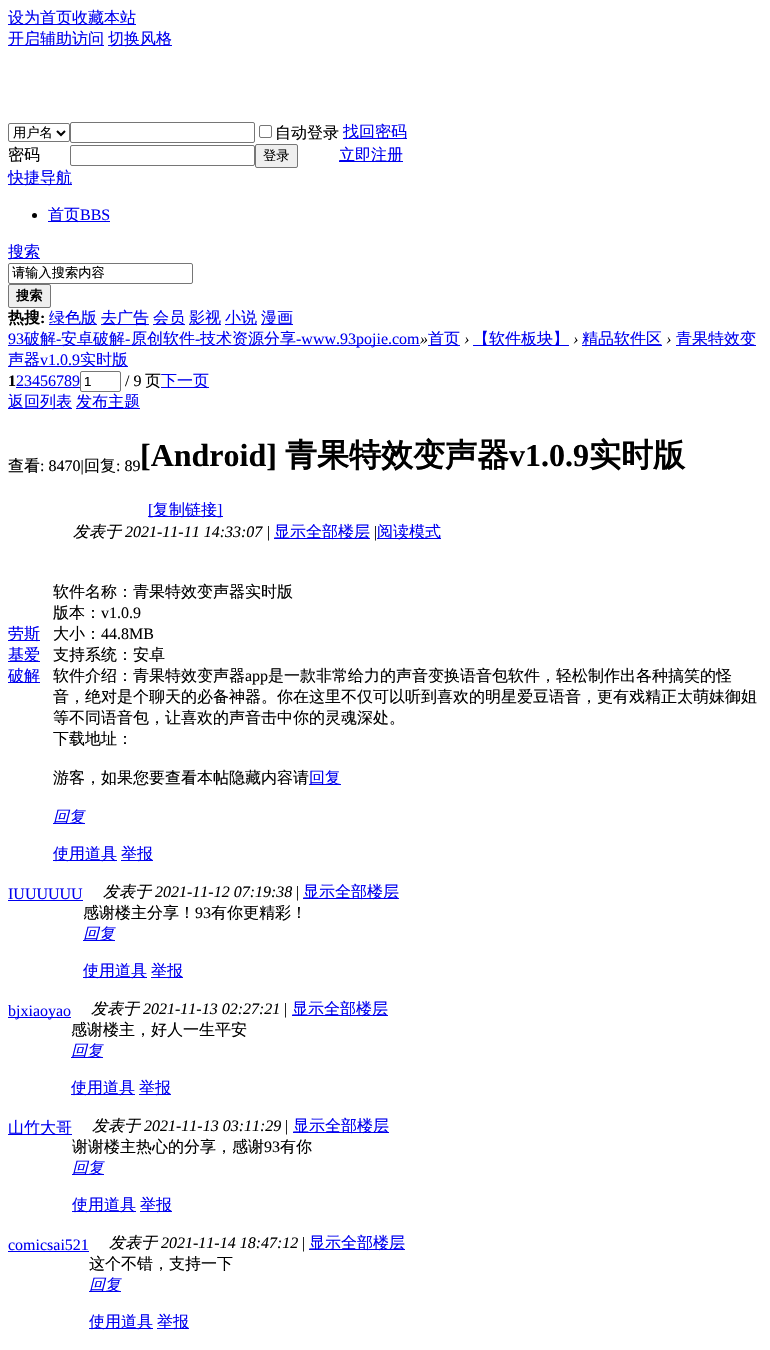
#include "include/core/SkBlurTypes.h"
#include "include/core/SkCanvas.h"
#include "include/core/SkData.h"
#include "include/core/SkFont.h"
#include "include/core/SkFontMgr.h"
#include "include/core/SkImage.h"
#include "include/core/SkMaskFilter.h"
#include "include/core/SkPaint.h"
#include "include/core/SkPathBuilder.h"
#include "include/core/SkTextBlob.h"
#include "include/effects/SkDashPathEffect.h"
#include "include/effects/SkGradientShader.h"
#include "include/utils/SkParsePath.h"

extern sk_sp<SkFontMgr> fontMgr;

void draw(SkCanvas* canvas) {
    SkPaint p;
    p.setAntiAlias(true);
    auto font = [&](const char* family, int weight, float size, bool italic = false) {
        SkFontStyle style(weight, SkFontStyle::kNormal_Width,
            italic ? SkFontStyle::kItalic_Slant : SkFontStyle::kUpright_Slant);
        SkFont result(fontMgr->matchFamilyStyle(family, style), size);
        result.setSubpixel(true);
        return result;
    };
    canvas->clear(0xFFFFFFFF);
    p.setColor(0xFF0000EE);
    canvas->drawRect(SkRect::MakeLTRB(8, 24, 136, 25), p);
    auto font1 = font("WenQuanYi Zen Hei", 500, 16);
    canvas->drawString("设为首页收藏本站", 8, 23, font1, p);
    canvas->drawRect(SkRect::MakeLTRB(8, 45, 104, 46), p);
    canvas->drawString("开启辅助访问", 8, 44, font1, p);
    canvas->drawRect(SkRect::MakeLTRB(108, 45, 172, 46), p);
    canvas->drawString("切换风格", 108, 44, font1, p);
    p.setStyle(SkPaint::kStroke_Style);
    p.setStrokeWidth(1);
    p.setColor(0xFF767676);
    canvas->drawRoundRect(SkRect::MakeLTRB(8.5f, 123.5f, 69.5f, 141.5f), 1.5f, 1.5f, p);
    p.setStrokeWidth(2);
    p.setColor(0xFF000000);
    canvas->drawPath(SkPathBuilder().moveTo(57, 131).lineTo(61, 135).lineTo(65, 131).detach(), p);
    auto font2 = font("WenQuanYi Zen Hei", 500, 13.25f);
    p.setStyle(SkPaint::kFill_Style);
    canvas->drawString("用户名", 13, 137, font2, p);
    p.setStyle(SkPaint::kStroke_Style);
    p.setStrokeWidth(1);
    p.setColor(0xFF767676);
    canvas->drawRoundRect(SkRect::MakeLTRB(70.5f, 122.5f, 254.5f, 142.5f), 1.5f, 1.5f, p);
    canvas->drawRoundRect(SkRect::MakeLTRB(259.5f, 125.5f, 271.5f, 137.5f), 1.5f, 1.5f, p);
    p.setStyle(SkPaint::kFill_Style);
    p.setColor(0xFF000000);
    canvas->drawString("自动登录", 275, 138, font1, p);
    p.setColor(0xFF0000EE);
    canvas->drawRect(SkRect::MakeLTRB(343, 138, 407, 139), p);
    canvas->drawString("找回密码", 343, 137, font1, p);
    p.setColor(0xFF000000);
    canvas->drawString("密码", 8, 160, font1, p);
    p.setStyle(SkPaint::kStroke_Style);
    p.setColor(0xFF767676);
    canvas->drawRoundRect(SkRect::MakeLTRB(70.5f, 145.5f, 254.5f, 165.5f), 1.5f, 1.5f, p);
    p.setStyle(SkPaint::kFill_Style);
    p.setColor(0xFFEFEFEF);
    canvas->drawRoundRect(SkRect::MakeLTRB(255.5f, 144.5f, 297.5f, 167.5f), 1.5f, 1.5f, p);
    p.setStyle(SkPaint::kStroke_Style);
    p.setColor(0xFF767676);
    canvas->drawRoundRect(SkRect::MakeLTRB(255.5f, 144.5f, 297.5f, 167.5f), 1.5f, 1.5f, p);
    p.setStyle(SkPaint::kFill_Style);
    p.setColor(0xFF000000);
    canvas->drawString("登录", 263, 160, font2, p);
    p.setColor(0xFF0000EE);
    canvas->drawRect(SkRect::MakeLTRB(339, 161, 403, 162), p);
    canvas->drawString("立即注册", 339, 160, font1, p);
    canvas->drawRect(SkRect::MakeLTRB(8, 184, 72, 185), p);
    canvas->drawString("快捷导航", 8, 183, font1, p);
    p.setColor(0xFF000000);
    canvas->drawCircle(34.5f, 215.5f, 2.5f, p);
    p.setColor(0xFF0000EE);
    canvas->drawRect(SkRect::MakeLTRB(48, 221, 110, 222), p);
    canvas->drawString("首页", 48, 220, font1, p);
    auto font3 = font("Liberation Serif", 400, 16);
    canvas->drawString("BBS", 80, 220, font3, p);
    canvas->drawRect(SkRect::MakeLTRB(8, 258, 40, 259), p);
    canvas->drawString("搜索", 8, 257, font1, p);
    p.setStyle(SkPaint::kStroke_Style);
    p.setColor(0xFF767676);
    canvas->drawRoundRect(SkRect::MakeLTRB(8.5f, 263.5f, 192.5f, 283.5f), 1.5f, 1.5f, p);
    p.setStyle(SkPaint::kFill_Style);
    p.setColor(0xFF000000);
    canvas->drawString("请输入搜索内容", 12, 277, font2, p);
    p.setColor(0xFFEFEFEF);
    canvas->drawRoundRect(SkRect::MakeLTRB(8.5f, 284.5f, 50.5f, 307.5f), 1.5f, 1.5f, p);
    p.setStyle(SkPaint::kStroke_Style);
    p.setColor(0xFF767676);
    canvas->drawRoundRect(SkRect::MakeLTRB(8.5f, 284.5f, 50.5f, 307.5f), 1.5f, 1.5f, p);
    auto font4 = font("WenQuanYi Zen Hei", 700, 13.25f);
    p.setStyle(SkPaint::kFill_Style);
    p.setColor(0xFF000000);
    canvas->drawString("搜索", 16, 300, font4, p);
    auto font5 = font("WenQuanYi Zen Hei", 700, 16);
    canvas->drawString("热搜", 8, 323, font5, p);
    auto font6 = font("Liberation Serif", 700, 16);
    canvas->drawString(":", 40, 323, font6, p);
    p.setColor(0xFF0000EE);
    canvas->drawRect(SkRect::MakeLTRB(49, 324, 97, 325), p);
    canvas->drawString("绿色版", 49, 323, font1, p);
    canvas->drawRect(SkRect::MakeLTRB(101, 324, 149, 325), p);
    canvas->drawString("去广告", 101, 323, font1, p);
    canvas->drawRect(SkRect::MakeLTRB(153, 324, 185, 325), p);
    canvas->drawString("会员", 153, 323, font1, p);
    canvas->drawRect(SkRect::MakeLTRB(189, 324, 221, 325), p);
    canvas->drawString("影视", 189, 323, font1, p);
    canvas->drawRect(SkRect::MakeLTRB(225, 324, 257, 325), p);
    canvas->drawString("小说", 225, 323, font1, p);
    canvas->drawRect(SkRect::MakeLTRB(261, 324, 293, 325), p);
    canvas->drawString("漫画", 261, 323, font1, p);
    canvas->drawString("93", 8, 344, font3, p);
    canvas->drawRect(SkRect::MakeLTRB(8, 345, 420, 346), p);
    canvas->drawString("破解", 24, 344, font1, p);
    canvas->drawString("-", 56, 344, font3, p);
    canvas->drawString("安卓破解", 61, 344, font1, p);
    canvas->drawString("-", 125, 344, font3, p);
    canvas->drawString("原创软件", 131, 344, font1, p);
    canvas->drawString("-", 195, 344, font3, p);
    canvas->drawString("技术资源分享", 200, 344, font1, p);
    canvas->drawString("-www.93pojie.com", 296, 344, font3, p);
    auto font7 = font("Liberation Serif", 400, 16, true);
    p.setColor(0xFF000000);
    canvas->drawString("»", 420, 344, font7, p);
    p.setColor(0xFF0000EE);
    canvas->drawRect(SkRect::MakeLTRB(428, 345, 460, 346), p);
    canvas->drawString("首页", 428, 344, font1, p);
    p.setColor(0xFF000000);
    canvas->drawString("›", 464, 344, font7, p);
    p.setColor(0xFF0000EE);
    canvas->drawRect(SkRect::MakeLTRB(473, 345, 569, 346), p);
    canvas->drawString("【软件板块】", 473, 344, font1, p);
    p.setColor(0xFF000000);
    canvas->drawString("›", 573, 344, font7, p);
    p.setColor(0xFF0000EE);
    canvas->drawRect(SkRect::MakeLTRB(582, 345, 662, 346), p);
    canvas->drawString("精品软件区", 582, 344, font1, p);
    p.setColor(0xFF000000);
    canvas->drawString("›", 666, 344, font7, p);
    p.setColor(0xFF0000EE);
    canvas->drawRect(SkRect::MakeLTRB(676, 345, 756, 346), p);
    canvas->drawString("青果特效变", 676, 344, font1, p);
    canvas->drawRect(SkRect::MakeLTRB(8, 366, 128, 367), p);
    canvas->drawString("声器", 8, 365, font1, p);
    canvas->drawString("v1.0.9", 40, 365, font3, p);
    canvas->drawString("实时版", 80, 365, font1, p);
    p.setColor(0xFF000000);
    canvas->drawString("1", 8, 386, font6, p);
    p.setColor(0xFF0000EE);
    canvas->drawString("23456789", 16, 386, font3, p);
    canvas->drawRect(SkRect::MakeLTRB(16, 387, 80, 388), p);
    p.setStyle(SkPaint::kStroke_Style);
    p.setColor(0xFF767676);
    canvas->drawRoundRect(SkRect::MakeLTRB(80.5f, 371.5f, 120.5f, 391.5f), 1.5f, 1.5f, p);
    auto font8 = font("Liberation Sans", 400, 13.25f);
    p.setStyle(SkPaint::kFill_Style);
    p.setColor(0xFF000000);
    canvas->drawString("1", 84, 386, font8, p);
    canvas->drawString("/ 9", 125, 386, font3, p);
    canvas->drawString("页", 145, 386, font1, p);
    p.setColor(0xFF0000EE);
    canvas->drawRect(SkRect::MakeLTRB(161, 387, 209, 388), p);
    canvas->drawString("下一页", 161, 386, font1, p);
    canvas->drawRect(SkRect::MakeLTRB(8, 408, 72, 409), p);
    canvas->drawString("返回列表", 8, 407, font1, p);
    canvas->drawRect(SkRect::MakeLTRB(76, 408, 140, 409), p);
    canvas->drawString("发布主题", 76, 407, font1, p);
    p.setColor(0xFF000000);
    canvas->drawString("查看", 8, 471, font1, p);
    canvas->drawString(": 8470|", 40, 471, font3, p);
    canvas->drawString("回复", 84, 471, font1, p);
    canvas->drawString(": 89", 116, 471, font3, p);
    auto font9 = font("Liberation Serif", 700, 32);
    canvas->drawString("[Android]", 140, 466, font9, p);
    auto font10 = font("WenQuanYi Zen Hei", 700, 32);
    canvas->drawString("青果特效变声器", 285, 466, font10, p);
    canvas->drawString("v1.0.9", 509, 466, font9, p);
    canvas->drawString("实时版", 589, 466, font10, p);
    p.setColor(0xFF0000EE);
    canvas->drawRect(SkRect::MakeLTRB(148, 516, 223, 517), p);
    canvas->drawString("[", 148, 515, font3, p);
    canvas->drawString("复制链接", 153, 515, font1, p);
    canvas->drawString("]", 217, 515, font3, p);
    canvas->drawRect(SkRect::MakeLTRB(8, 640, 40, 641), p);
    canvas->drawString("劳斯", 8, 639, font1, p);
    canvas->drawRect(SkRect::MakeLTRB(8, 661, 40, 662), p);
    canvas->drawString("基爱", 8, 660, font1, p);
    canvas->drawRect(SkRect::MakeLTRB(8, 682, 40, 683), p);
    canvas->drawString("破解", 8, 681, font1, p);
    auto font11 = font("WenQuanYi Zen Hei", 500, 16, true);
    p.setColor(0xFF000000);
    canvas->drawString("发表于", 73, 537, font11, p);
    canvas->drawString("2021-11-11 14:33:07", 125, 537, font7, p);
    canvas->drawString("|", 267, 537, font3, p);
    p.setColor(0xFF0000EE);
    canvas->drawRect(SkRect::MakeLTRB(274, 538, 370, 539), p);
    canvas->drawString("显示全部楼层", 274, 537, font1, p);
    p.setColor(0xFF000000);
    canvas->drawString("|", 374, 537, font3, p);
    p.setColor(0xFF0000EE);
    canvas->drawRect(SkRect::MakeLTRB(377, 538, 441, 539), p);
    canvas->drawString("阅读模式", 377, 537, font1, p);
    p.setColor(0xFF000000);
    canvas->drawString("软件名称：青果特效变声器实时版", 53, 597, font1, p);
    canvas->drawString("版本：", 53, 618, font1, p);
    canvas->drawString("v1.0.9", 101, 618, font3, p);
    canvas->drawString("大小：", 53, 639, font1, p);
    canvas->drawString("44.8MB", 101, 639, font3, p);
    canvas->drawString("支持系统：安卓", 53, 660, font1, p);
    canvas->drawString("软件介绍：青果特效变声器", 53, 681, font1, p);
    canvas->drawString("app", 245, 681, font3, p);
    {
        const struct { const char* s; float x, y; } items[] = {
            {"是一款非常给力的声音变换语音包软件，轻松制作出各种搞笑的怪", 268, 681},
            {"音，绝对是个聊天的必备神器。你在这里不仅可以听到喜欢的明星爱豆语音，更有戏精正太萌妹御姐", 53, 702},
            {"等不同语音包，让喜欢的声音击中你的灵魂深处。", 53, 723},
            {"下载地址：", 53, 744},
            {"游客，如果您要查看本帖隐藏内容请", 53, 783},
        };
        for (auto [s, x, y] : items) {
            canvas->drawString(s, x, y, font1, p);
        }
    }
    p.setColor(0xFF0000EE);
    canvas->drawRect(SkRect::MakeLTRB(309, 784, 341, 785), p);
    canvas->drawString("回复", 309, 783, font1, p);
    canvas->drawRect(SkRect::MakeLTRB(53, 823, 85, 824), p);
    canvas->drawString("回复", 53, 822, font11, p);
    canvas->drawRect(SkRect::MakeLTRB(53, 860, 117, 861), p);
    canvas->drawString("使用道具", 53, 859, font1, p);
    canvas->drawRect(SkRect::MakeLTRB(121, 860, 153, 861), p);
    canvas->drawString("举报", 121, 859, font1, p);
    canvas->drawString("IUUUUUU", 8, 899, font3, p);
    canvas->drawRect(SkRect::MakeLTRB(8, 900, 83, 901), p);
    p.setColor(0xFF000000);
    canvas->drawString("发表于", 103, 897, font11, p);
    canvas->drawString("2021-11-12 07:19:38", 155, 897, font7, p);
    canvas->drawString("|", 296, 897, font3, p);
    p.setColor(0xFF0000EE);
    canvas->drawRect(SkRect::MakeLTRB(303, 898, 399, 899), p);
    canvas->drawString("显示全部楼层", 303, 897, font1, p);
    p.setColor(0xFF000000);
    canvas->drawString("感谢楼主分享！", 83, 918, font1, p);
    canvas->drawString("93", 195, 918, font3, p);
    canvas->drawString("有你更精彩！", 211, 918, font1, p);
    p.setColor(0xFF0000EE);
    canvas->drawRect(SkRect::MakeLTRB(83, 940, 115, 941), p);
    canvas->drawString("回复", 83, 939, font11, p);
    canvas->drawRect(SkRect::MakeLTRB(83, 977, 147, 978), p);
    canvas->drawString("使用道具", 83, 976, font1, p);
    canvas->drawRect(SkRect::MakeLTRB(151, 977, 183, 978), p);
    canvas->drawString("举报", 151, 976, font1, p);
    canvas->drawRect(SkRect::MakeLTRB(8, 1017, 71, 1018), p);
    canvas->drawString("bjxiaoyao", 8, 1016, font3, p);
    p.setColor(0xFF000000);
    canvas->drawString("发表于", 91, 1014, font11, p);
    canvas->drawString("2021-11-13 02:27:21", 143, 1014, font7, p);
    canvas->drawString("|", 284, 1014, font3, p);
    p.setColor(0xFF0000EE);
    canvas->drawRect(SkRect::MakeLTRB(292, 1015, 388, 1016), p);
    canvas->drawString("显示全部楼层", 292, 1014, font1, p);
    p.setColor(0xFF000000);
    canvas->drawString("感谢楼主，好人一生平安", 71, 1035, font1, p);
    p.setColor(0xFF0000EE);
    canvas->drawRect(SkRect::MakeLTRB(71, 1057, 103, 1058), p);
    canvas->drawString("回复", 71, 1056, font11, p);
    canvas->drawRect(SkRect::MakeLTRB(71, 1094, 135, 1095), p);
    canvas->drawString("使用道具", 71, 1093, font1, p);
    canvas->drawRect(SkRect::MakeLTRB(139, 1094, 171, 1095), p);
    canvas->drawString("举报", 139, 1093, font1, p);
    canvas->drawRect(SkRect::MakeLTRB(8, 1134, 72, 1135), p);
    canvas->drawString("山竹大哥", 8, 1133, font1, p);
    p.setColor(0xFF000000);
    canvas->drawString("发表于", 92, 1131, font11, p);
    canvas->drawString("2021-11-13 03:11:29", 144, 1131, font7, p);
    canvas->drawString("|", 285, 1131, font3, p);
    p.setColor(0xFF0000EE);
    canvas->drawRect(SkRect::MakeLTRB(293, 1132, 389, 1133), p);
    canvas->drawString("显示全部楼层", 293, 1131, font1, p);
    p.setColor(0xFF000000);
    canvas->drawString("谢谢楼主热心的分享，感谢", 72, 1152, font1, p);
    canvas->drawString("93", 264, 1152, font3, p);
    canvas->drawString("有你", 280, 1152, font1, p);
    p.setColor(0xFF0000EE);
    canvas->drawRect(SkRect::MakeLTRB(72, 1174, 104, 1175), p);
    canvas->drawString("回复", 72, 1173, font11, p);
    canvas->drawRect(SkRect::MakeLTRB(72, 1211, 136, 1212), p);
    canvas->drawString("使用道具", 72, 1210, font1, p);
    canvas->drawRect(SkRect::MakeLTRB(140, 1211, 172, 1212), p);
    canvas->drawString("举报", 140, 1210, font1, p);
    canvas->drawString("comicsai521", 8, 1250, font3, p);
    canvas->drawRect(SkRect::MakeLTRB(8, 1251, 89, 1252), p);
    p.setColor(0xFF000000);
    canvas->drawString("发表于", 109, 1248, font11, p);
    canvas->drawString("2021-11-14 18:47:12", 161, 1248, font7, p);
    canvas->drawString("|", 302, 1248, font3, p);
    p.setColor(0xFF0000EE);
    canvas->drawRect(SkRect::MakeLTRB(309, 1249, 405, 1250), p);
    canvas->drawString("显示全部楼层", 309, 1248, font1, p);
    p.setColor(0xFF000000);
    canvas->drawString("这个不错，支持一下", 89, 1269, font1, p);
    p.setColor(0xFF0000EE);
    canvas->drawRect(SkRect::MakeLTRB(89, 1291, 121, 1292), p);
    canvas->drawString("回复", 89, 1290, font11, p);
    canvas->drawRect(SkRect::MakeLTRB(89, 1328, 153, 1329), p);
    canvas->drawString("使用道具", 89, 1327, font1, p);
    canvas->drawRect(SkRect::MakeLTRB(157, 1328, 189, 1329), p);
    canvas->drawString("举报", 157, 1327, font1, p);
}
